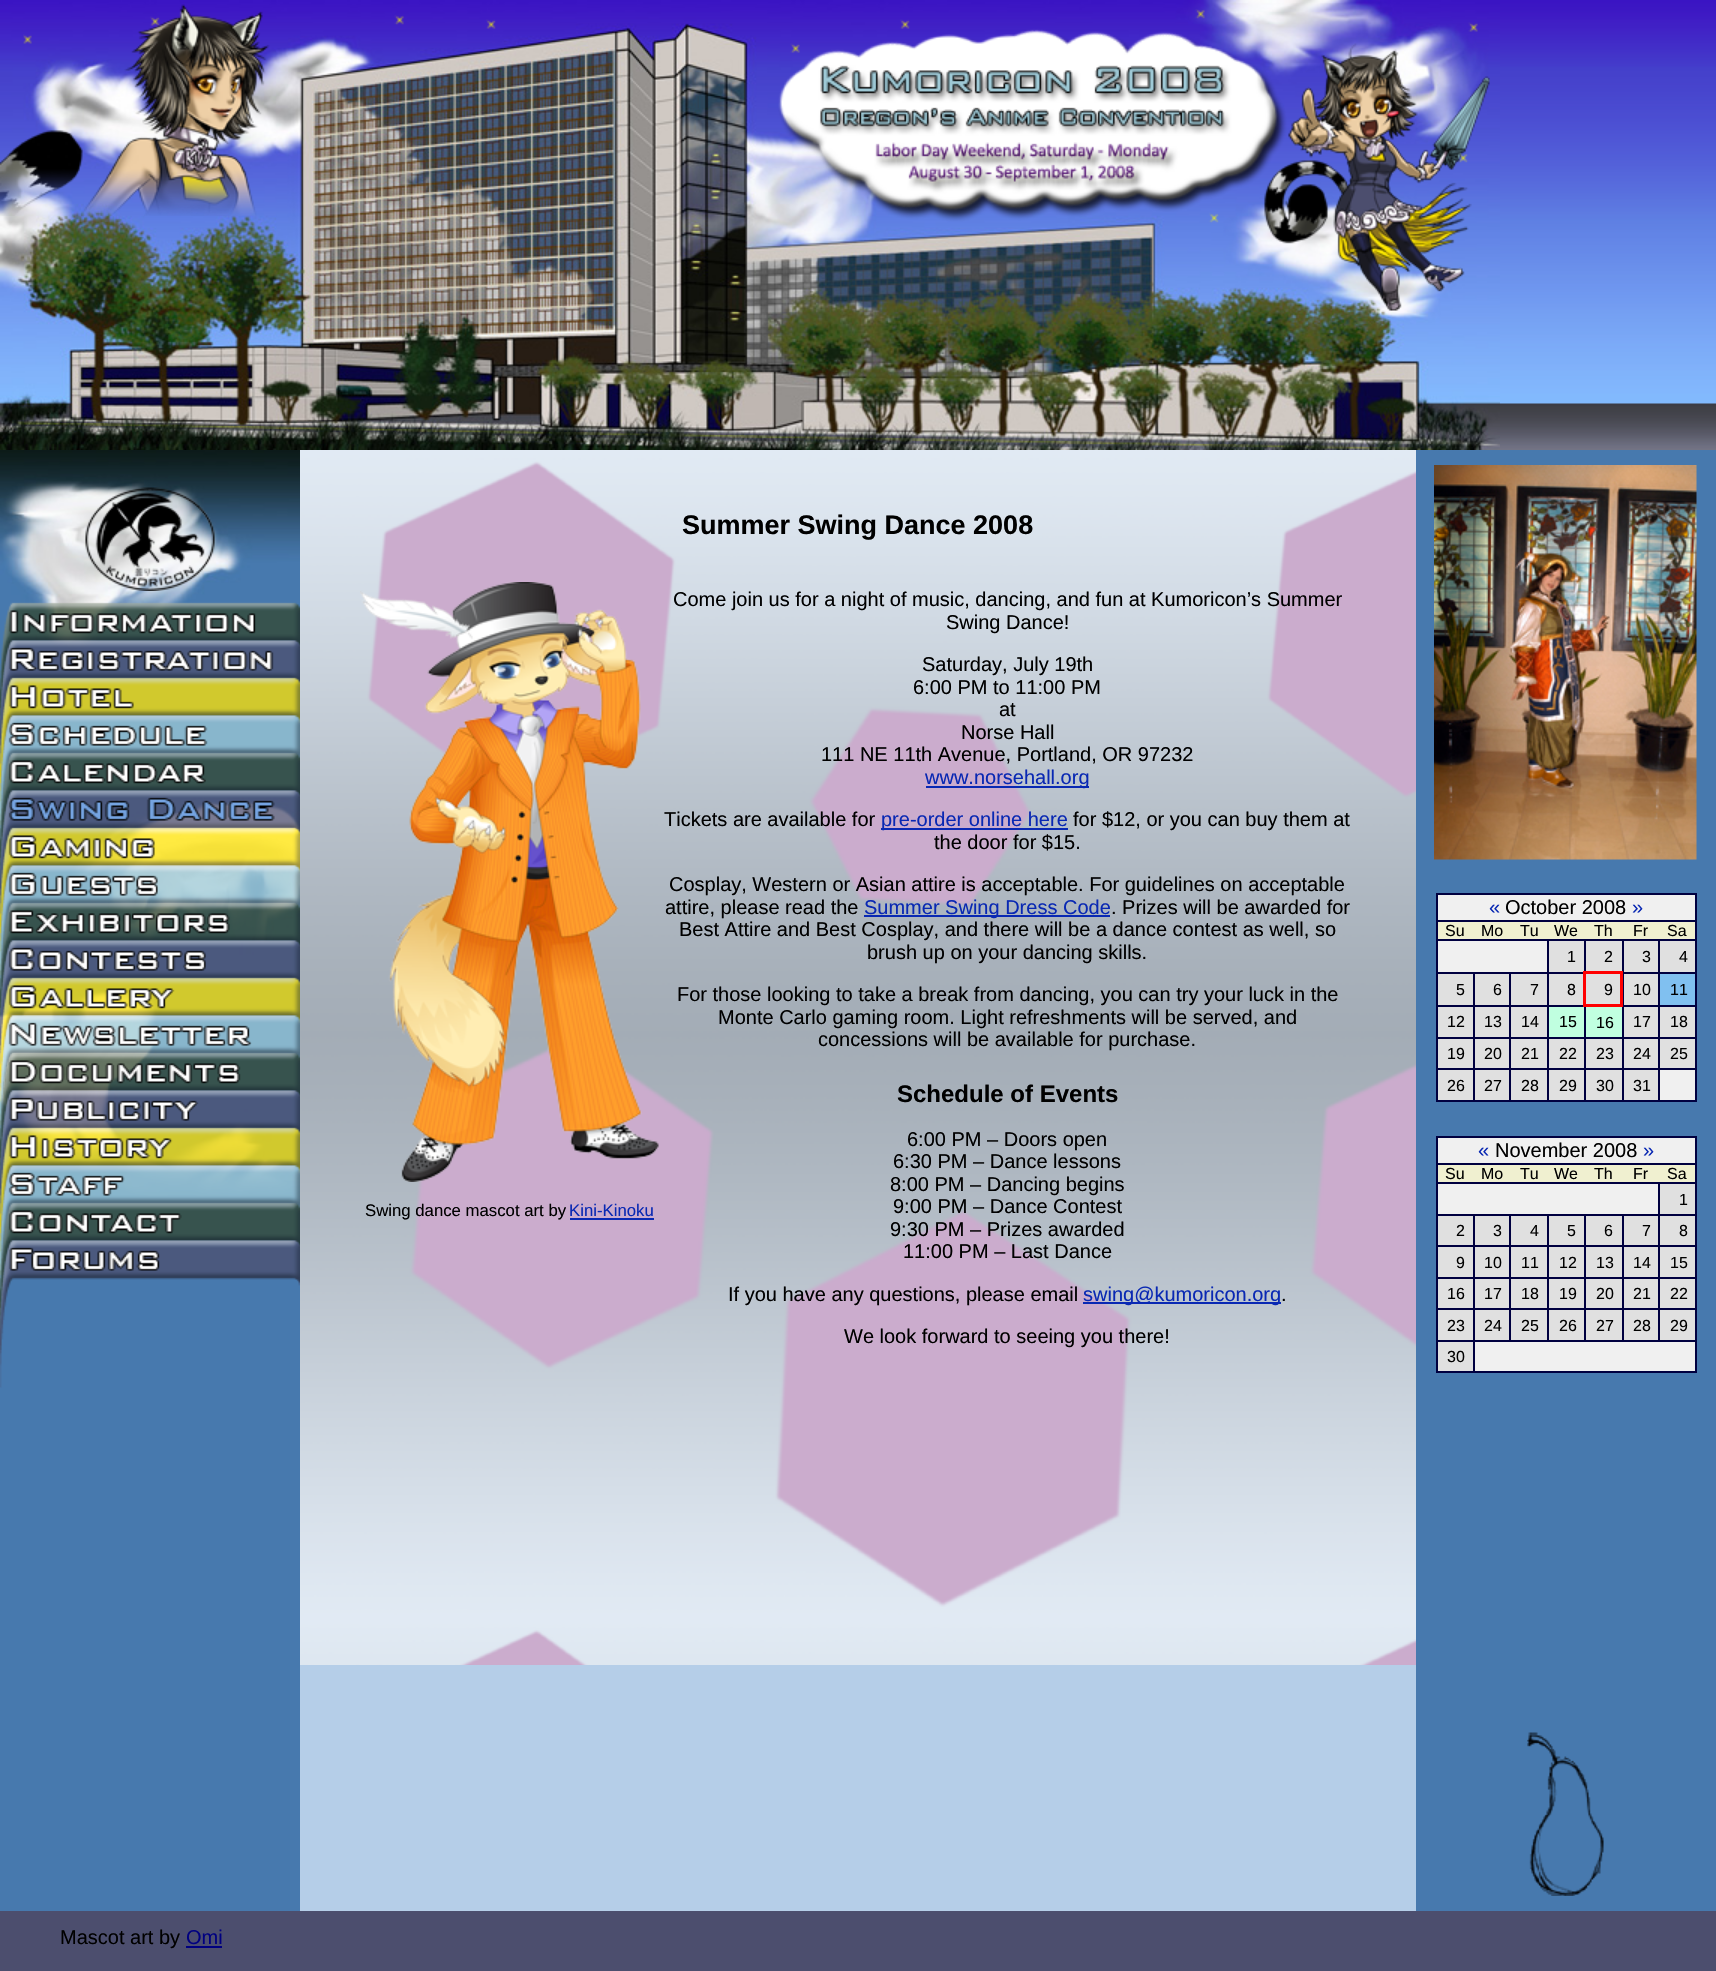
#include "include/core/SkBlurTypes.h"
#include "include/core/SkCanvas.h"
#include "include/core/SkData.h"
#include "include/core/SkFont.h"
#include "include/core/SkFontMgr.h"
#include "include/core/SkImage.h"
#include "include/core/SkMaskFilter.h"
#include "include/core/SkPaint.h"
#include "include/core/SkPathBuilder.h"
#include "include/core/SkTextBlob.h"
#include "include/effects/SkDashPathEffect.h"
#include "include/effects/SkGradientShader.h"
#include "include/utils/SkParsePath.h"

extern sk_sp<SkFontMgr> fontMgr;

void draw(SkCanvas* canvas) {
    SkPaint p;
    p.setAntiAlias(true);
    auto font = [&](const char* family, int weight, float size, bool italic = false) {
        SkFontStyle style(weight, SkFontStyle::kNormal_Width,
            italic ? SkFontStyle::kItalic_Slant : SkFontStyle::kUpright_Slant);
        SkFont result(fontMgr->matchFamilyStyle(family, style), size);
        result.setSubpixel(true);
        return result;
    };
    auto drawPhoto = [&](const char* path, float l, float t, float r, float b) {
        auto image = SkImages::DeferredFromEncodedData(SkData::MakeFromFileName(path));
        canvas->drawImageRect(image, SkRect::MakeLTRB(l, t, r, b), SkSamplingOptions());
    };
    canvas->clear(0xFFB5CEE8);
    p.setColor(0xFF4779AE);
    canvas->drawRect(SkRect::MakeLTRB(1416, 450, 1716, 1911), p);
    canvas->drawRect(SkRect::MakeLTRB(0, 1197, 300, 1911), p);
    drawPhoto("media/1.png", 1500, 0, 1716, 450);
    drawPhoto("media/2.png", 0, 0, 1500, 450);
    drawPhoto("media/4.png", 23, 9, 1478, 223);
    drawPhoto("media/3.png", 0, 4, 270, 216);
    drawPhoto("media/5.png", 1264, 43, 1490, 311);
    drawPhoto("media/6.png", 0, 450, 300, 1197);
    drawPhoto("media/7.png", 85, 487, 215, 591);
    drawPhoto("media/8.png", 0, 602, 300, 750);
    drawPhoto("media/9.png", 8, 610, 256, 634);
    drawPhoto("media/10.png", 0, 640, 300, 788);
    drawPhoto("media/11.png", 8, 647, 274, 671);
    drawPhoto("media/12.png", 0, 677, 300, 825);
    drawPhoto("media/13.png", 8, 685, 134, 709);
    drawPhoto("media/14.png", 0, 715, 300, 863);
    drawPhoto("media/15.png", 8, 722, 208, 746);
    drawPhoto("media/16.png", 0, 752, 300, 900);
    drawPhoto("media/17.png", 8, 760, 206, 784);
    drawPhoto("media/18.png", 0, 790, 300, 938);
    drawPhoto("media/19.png", 8, 797, 275, 821);
    drawPhoto("media/20.png", 0, 827, 300, 975);
    drawPhoto("media/21.png", 8, 835, 155, 859);
    drawPhoto("media/22.png", 0, 865, 300, 1013);
    drawPhoto("media/23.png", 8, 872, 158, 896);
    drawPhoto("media/24.png", 0, 902, 300, 1050);
    drawPhoto("media/25.png", 8, 910, 230, 934);
    drawPhoto("media/26.png", 0, 940, 300, 1088);
    drawPhoto("media/27.png", 8, 947, 206, 971);
    drawPhoto("media/28.png", 0, 977, 300, 1125);
    drawPhoto("media/29.png", 8, 985, 175, 1009);
    drawPhoto("media/30.png", 0, 1015, 300, 1163);
    drawPhoto("media/31.png", 8, 1022, 252, 1046);
    drawPhoto("media/32.png", 0, 1052, 300, 1200);
    drawPhoto("media/33.png", 8, 1060, 241, 1084);
    drawPhoto("media/34.png", 0, 1090, 300, 1238);
    drawPhoto("media/35.png", 8, 1097, 199, 1121);
    drawPhoto("media/36.png", 0, 1127, 300, 1275);
    drawPhoto("media/37.png", 8, 1135, 173, 1159);
    drawPhoto("media/38.png", 0, 1165, 300, 1313);
    drawPhoto("media/39.png", 8, 1172, 125, 1196);
    drawPhoto("media/40.png", 0, 1202, 300, 1350);
    drawPhoto("media/41.png", 8, 1210, 182, 1234);
    drawPhoto("media/42.png", 0, 1240, 300, 1388);
    drawPhoto("media/43.png", 8, 1247, 160, 1271);
    drawPhoto("media/44.png", 300, 450, 1416, 1665);
    auto font1 = font("Liberation Sans", 700, 27);
    p.setColor(0xFF000000);
    canvas->drawString("Summer Swing Dance 2008", 682, 534, font1, p);
    drawPhoto("media/45.png", 360, 582, 659, 1182);
    auto font2 = font("Liberation Sans", 400, 16.75f);
    canvas->drawString("Swing dance mascot art by", 365, 1216, font2, p);
    p.setColor(0xFF0928B3);
    canvas->drawString("Kini-Kinoku", 569, 1216, font2, p);
    canvas->drawRect(SkRect::MakeLTRB(570, 1218, 654, 1220), p);
    auto font3 = font("Liberation Sans", 400, 20);
    p.setColor(0xFF000000);
    {
        const struct { const char* s; float x, y; } items[] = {
            {"Come join us for a night of music, dancing, and fun at Kumoricon’s Summer", 673, 606},
            {"Swing Dance!", 946, 629},
            {"Saturday, July 19th", 922, 671},
            {"6:00 PM to 11:00 PM", 913, 694},
            {"at", 999, 716},
            {"Norse Hall", 961, 739},
            {"111 NE 11th Avenue, Portland, OR 97232", 821, 761},
        };
        for (auto [s, x, y] : items) {
            canvas->drawString(s, x, y, font3, p);
        }
    }
    p.setColor(0xFF0928B3);
    canvas->drawRect(SkRect::MakeLTRB(926, 786, 1089, 788), p);
    canvas->drawString("www.norsehall.org", 925, 784, font3, p);
    p.setColor(0xFF000000);
    canvas->drawString("Tickets are available for", 664, 826, font3, p);
    p.setColor(0xFF0928B3);
    canvas->drawRect(SkRect::MakeLTRB(881, 828, 1068, 830), p);
    canvas->drawString("pre-order online here", 881, 826, font3, p);
    p.setColor(0xFF000000);
    {
        const struct { const char* s; float x, y; } items[] = {
            {"for $12, or you can buy them at", 1073, 826},
            {"the door for $15.", 934, 849},
            {"Cosplay, Western or Asian attire is acceptable. For guidelines on acceptable", 669, 891},
            {"attire, please read the", 665, 914},
        };
        for (auto [s, x, y] : items) {
            canvas->drawString(s, x, y, font3, p);
        }
    }
    p.setColor(0xFF0928B3);
    canvas->drawRect(SkRect::MakeLTRB(864, 915, 1110, 917), p);
    canvas->drawString("Summer Swing Dress Code", 864, 914, font3, p);
    p.setColor(0xFF000000);
    {
        const struct { const char* s; float x, y; } items[] = {
            {". Prizes will be awarded for", 1111, 914},
            {"Best Attire and Best Cosplay, and there will be a dance contest as well, so", 679, 936},
            {"brush up on your dancing skills.", 867, 959},
            {"For those looking to take a break from dancing, you can try your luck in the", 677, 1001},
            {"Monte Carlo gaming room. Light refreshments will be served, and", 718, 1024},
            {"concessions will be available for purchase.", 818, 1046},
        };
        for (auto [s, x, y] : items) {
            canvas->drawString(s, x, y, font3, p);
        }
    }
    auto font4 = font("Liberation Sans", 700, 24);
    canvas->drawString("Schedule of Events", 897, 1102, font4, p);
    {
        const struct { const char* s; float x, y; } items[] = {
            {"6:00 PM – Doors open", 907, 1146},
            {"6:30 PM – Dance lessons", 893, 1168},
            {"8:00 PM – Dancing begins", 890, 1191},
            {"9:00 PM – Dance Contest", 893, 1213},
            {"9:30 PM – Prizes awarded", 890, 1236},
            {"11:00 PM – Last Dance", 903, 1258},
            {"If you have any questions, please email", 728, 1301},
        };
        for (auto [s, x, y] : items) {
            canvas->drawString(s, x, y, font3, p);
        }
    }
    p.setColor(0xFF0928B3);
    canvas->drawRect(SkRect::MakeLTRB(1083, 1302, 1281, 1304), p);
    canvas->drawString("swing@kumoricon.org", 1083, 1301, font3, p);
    p.setColor(0xFF000000);
    canvas->drawString(".", 1281, 1301, font3, p);
    canvas->drawString("We look forward to seeing you there!", 844, 1343, font3, p);
    drawPhoto("media/46.png", 1434, 465, 1697, 860);
    {
        const struct { float l, t, r, b; SkColor color; } items[] = {
            {1438, 895, 1695, 920, 0xFFF0F0F0},
            {1436, 893, 1697, 895, 0xFF000040},
            {1658, 939, 1697, 941, 0xFF000040},
            {1658, 972, 1697, 974, 0xFF000040},
            {1658, 1005, 1697, 1007, 0xFF000040},
            {1658, 1037, 1697, 1039, 0xFF000040},
            {1658, 1068, 1697, 1070, 0xFF000040},
            {1695, 1068, 1697, 1101, 0xFF000040},
            {1695, 1037, 1697, 1070, 0xFF000040},
            {1695, 1005, 1697, 1038, 0xFF000040},
            {1695, 972, 1697, 1007, 0xFF000040},
            {1695, 920, 1697, 974, 0xFF000040},
            {1695, 893, 1697, 921, 0xFF000040},
            {1658, 1100, 1697, 1102, 0xFF000040},
            {1658, 1068, 1660, 1101, 0xFF000040},
            {1622, 1068, 1659, 1070, 0xFF000040},
            {1658, 1037, 1660, 1070, 0xFF000040},
            {1622, 1037, 1659, 1039, 0xFF000040},
            {1658, 1005, 1660, 1038, 0xFF000040},
            {1622, 1005, 1659, 1007, 0xFF000040},
            {1658, 972, 1660, 1007, 0xFF000040},
            {1622, 972, 1659, 974, 0xFF000040},
            {1658, 939, 1660, 974, 0xFF000040},
            {1622, 939, 1659, 941, 0xFF000040},
            {1622, 1100, 1659, 1102, 0xFF000040},
            {1622, 1068, 1624, 1101, 0xFF000040},
            {1584, 1068, 1623, 1070, 0xFF000040},
            {1622, 1037, 1624, 1070, 0xFF000040},
            {1584, 1037, 1623, 1039, 0xFF000040},
            {1622, 1005, 1624, 1038, 0xFF000040},
            {1623, 972, 1624, 1007, 0xFF000040},
            {1622, 939, 1624, 974, 0xFF000040},
            {1584, 939, 1623, 941, 0xFF000040},
            {1547, 972, 1586, 974, 0xFF000040},
            {1584, 939, 1586, 974, 0xFF000040},
            {1547, 939, 1586, 941, 0xFF000040},
            {1584, 1100, 1623, 1102, 0xFF000040},
            {1584, 1068, 1586, 1101, 0xFF000040},
            {1547, 1068, 1586, 1070, 0xFF000040},
            {1584, 1037, 1586, 1070, 0xFF000040},
            {1547, 1037, 1586, 1039, 0xFF000040},
            {1584, 1005, 1586, 1038, 0xFF000040},
            {1547, 1005, 1586, 1007, 0xFF000040},
            {1547, 1100, 1586, 1102, 0xFF000040},
            {1547, 1068, 1549, 1101, 0xFF000040},
            {1509, 1068, 1548, 1070, 0xFF000040},
            {1547, 1037, 1549, 1070, 0xFF000040},
            {1509, 1037, 1548, 1039, 0xFF000040},
            {1547, 1005, 1549, 1038, 0xFF000040},
            {1509, 1005, 1548, 1007, 0xFF000040},
            {1547, 972, 1549, 1007, 0xFF000040},
            {1509, 972, 1548, 974, 0xFF000040},
            {1547, 939, 1549, 974, 0xFF000040},
            {1436, 939, 1548, 941, 0xFF000040},
            {1509, 1100, 1548, 1102, 0xFF000040},
            {1509, 1068, 1511, 1101, 0xFF000040},
            {1473, 1068, 1511, 1070, 0xFF000040},
            {1509, 1037, 1511, 1070, 0xFF000040},
            {1473, 1037, 1511, 1039, 0xFF000040},
            {1509, 1005, 1511, 1038, 0xFF000040},
            {1473, 1005, 1511, 1007, 0xFF000040},
            {1509, 972, 1511, 1007, 0xFF000040},
            {1473, 972, 1511, 974, 0xFF000040},
            {1473, 1100, 1511, 1102, 0xFF000040},
            {1473, 1068, 1475, 1101, 0xFF000040},
            {1436, 1068, 1475, 1070, 0xFF000040},
            {1473, 1037, 1475, 1070, 0xFF000040},
            {1436, 1037, 1475, 1039, 0xFF000040},
            {1473, 1005, 1475, 1038, 0xFF000040},
            {1436, 1005, 1475, 1007, 0xFF000040},
            {1473, 972, 1475, 1007, 0xFF000040},
            {1436, 972, 1475, 974, 0xFF000040},
            {1436, 1100, 1475, 1102, 0xFF000040},
            {1436, 1068, 1438, 1101, 0xFF000040},
            {1436, 1037, 1438, 1070, 0xFF000040},
            {1436, 1005, 1438, 1038, 0xFF000040},
            {1436, 972, 1438, 1007, 0xFF000040},
            {1436, 920, 1438, 974, 0xFF000040},
            {1436, 920, 1697, 922, 0xFF000040},
            {1436, 893, 1438, 921, 0xFF000040},
        };
        for (auto [l, t, r, b, color] : items) {
            p.setColor(color);
            canvas->drawRect(SkRect::MakeLTRB(l, t, r, b), p);
        }
    }
    p.setColor(0xFF0928B3);
    canvas->drawString("«", 1489, 914, font3, p);
    p.setColor(0xFF000000);
    canvas->drawString("October 2008", 1505, 914, font3, p);
    p.setColor(0xFF0928B3);
    canvas->drawString("»", 1632, 914, font3, p);
    p.setColor(0xFFF0F0D0);
    canvas->drawRect(SkRect::MakeLTRB(1438, 922, 1695, 939), p);
    auto font5 = font("Liberation Sans", 400, 16);
    p.setColor(0xFF000000);
    {
        const struct { const char* s; float x, y; } items[] = {
            {"Su", 1445, 936},
            {"Mo", 1481, 936},
            {"Tu", 1520, 936},
            {"We", 1554, 936},
            {"Th", 1594, 936},
            {"Fr", 1633, 936},
            {"Sa", 1667, 936},
        };
        for (auto [s, x, y] : items) {
            canvas->drawString(s, x, y, font5, p);
        }
    }
    p.setColor(0xFFF0F0F0);
    canvas->drawRect(SkRect::MakeLTRB(1438, 941, 1547, 972), p);
    p.setColor(0xFFE0E0E0);
    canvas->drawRect(SkRect::MakeLTRB(1549, 941, 1584, 972), p);
    p.setColor(0xFF000000);
    canvas->drawString("1", 1567, 962, font5, p);
    p.setColor(0xFFE0E0E0);
    canvas->drawRect(SkRect::MakeLTRB(1586, 941, 1622, 971), p);
    p.setColor(0xFF000000);
    canvas->drawString("2", 1604, 962, font5, p);
    p.setColor(0xFFE0E0E0);
    canvas->drawRect(SkRect::MakeLTRB(1624, 941, 1658, 972), p);
    p.setColor(0xFF000000);
    canvas->drawString("3", 1642, 962, font5, p);
    p.setColor(0xFFE0E0E0);
    canvas->drawRect(SkRect::MakeLTRB(1660, 941, 1695, 972), p);
    p.setColor(0xFF000000);
    canvas->drawString("4", 1679, 962, font5, p);
    p.setColor(0xFFE0E0E0);
    canvas->drawRect(SkRect::MakeLTRB(1438, 974, 1473, 1005), p);
    p.setColor(0xFF000000);
    canvas->drawString("5", 1456, 995, font5, p);
    p.setColor(0xFFE0E0E0);
    canvas->drawRect(SkRect::MakeLTRB(1475, 974, 1509, 1005), p);
    p.setColor(0xFF000000);
    canvas->drawString("6", 1493, 995, font5, p);
    p.setColor(0xFFE0E0E0);
    canvas->drawRect(SkRect::MakeLTRB(1511, 974, 1547, 1005), p);
    p.setColor(0xFF000000);
    canvas->drawString("7", 1530, 995, font5, p);
    p.setColor(0xFFE0E0E0);
    canvas->drawRect(SkRect::MakeLTRB(1549, 974, 1583, 1005), p);
    p.setColor(0xFF000000);
    canvas->drawString("8", 1567, 995, font5, p);
    {
        const struct { float l, t, r, b; SkColor color; } items[] = {
            {1586, 974, 1620, 1004, 0xFFE0E0E0},
            {1583, 971, 1623, 974, 0xFFFF0000},
            {1620, 971, 1623, 1007, 0xFFFF0000},
            {1583, 1004, 1623, 1007, 0xFFFF0000},
            {1583, 971, 1586, 1007, 0xFFFF0000},
        };
        for (auto [l, t, r, b, color] : items) {
            p.setColor(color);
            canvas->drawRect(SkRect::MakeLTRB(l, t, r, b), p);
        }
    }
    p.setColor(0xFF000000);
    canvas->drawString("9", 1604, 995, font5, p);
    p.setColor(0xFFE0E0E0);
    canvas->drawRect(SkRect::MakeLTRB(1624, 974, 1658, 1005), p);
    p.setColor(0xFF000000);
    canvas->drawString("10", 1633, 995, font5, p);
    p.setColor(0xFF80C0F0);
    canvas->drawRect(SkRect::MakeLTRB(1660, 974, 1695, 1005), p);
    p.setColor(0xFF000000);
    canvas->drawString("11", 1670, 995, font5, p);
    p.setColor(0xFFE0E0E0);
    canvas->drawRect(SkRect::MakeLTRB(1438, 1007, 1473, 1037), p);
    p.setColor(0xFF000000);
    canvas->drawString("12", 1447, 1027, font5, p);
    p.setColor(0xFFE0E0E0);
    canvas->drawRect(SkRect::MakeLTRB(1475, 1007, 1509, 1037), p);
    p.setColor(0xFF000000);
    canvas->drawString("13", 1484, 1027, font5, p);
    p.setColor(0xFFE0E0E0);
    canvas->drawRect(SkRect::MakeLTRB(1511, 1007, 1547, 1037), p);
    p.setColor(0xFF000000);
    canvas->drawString("14", 1521, 1027, font5, p);
    p.setColor(0xFFC0FFE0);
    canvas->drawRect(SkRect::MakeLTRB(1549, 1007, 1584, 1037), p);
    p.setColor(0xFF000000);
    canvas->drawString("15", 1559, 1027, font5, p);
    p.setColor(0xFFC0FFE0);
    canvas->drawRect(SkRect::MakeLTRB(1586, 1007, 1622, 1037), p);
    p.setColor(0xFF000000);
    canvas->drawString("16", 1596, 1028, font5, p);
    p.setColor(0xFFE0E0E0);
    canvas->drawRect(SkRect::MakeLTRB(1624, 1007, 1658, 1037), p);
    p.setColor(0xFF000000);
    canvas->drawString("17", 1633, 1027, font5, p);
    p.setColor(0xFFE0E0E0);
    canvas->drawRect(SkRect::MakeLTRB(1660, 1007, 1695, 1037), p);
    p.setColor(0xFF000000);
    canvas->drawString("18", 1670, 1027, font5, p);
    p.setColor(0xFFE0E0E0);
    canvas->drawRect(SkRect::MakeLTRB(1438, 1039, 1473, 1068), p);
    p.setColor(0xFF000000);
    canvas->drawString("19", 1447, 1059, font5, p);
    p.setColor(0xFFE0E0E0);
    canvas->drawRect(SkRect::MakeLTRB(1475, 1039, 1509, 1068), p);
    p.setColor(0xFF000000);
    canvas->drawString("20", 1484, 1059, font5, p);
    p.setColor(0xFFE0E0E0);
    canvas->drawRect(SkRect::MakeLTRB(1511, 1039, 1547, 1068), p);
    p.setColor(0xFF000000);
    canvas->drawString("21", 1521, 1059, font5, p);
    p.setColor(0xFFE0E0E0);
    canvas->drawRect(SkRect::MakeLTRB(1549, 1039, 1584, 1068), p);
    p.setColor(0xFF000000);
    canvas->drawString("22", 1559, 1059, font5, p);
    p.setColor(0xFFE0E0E0);
    canvas->drawRect(SkRect::MakeLTRB(1586, 1039, 1622, 1068), p);
    p.setColor(0xFF000000);
    canvas->drawString("23", 1596, 1059, font5, p);
    p.setColor(0xFFE0E0E0);
    canvas->drawRect(SkRect::MakeLTRB(1624, 1039, 1658, 1068), p);
    p.setColor(0xFF000000);
    canvas->drawString("24", 1633, 1059, font5, p);
    p.setColor(0xFFE0E0E0);
    canvas->drawRect(SkRect::MakeLTRB(1660, 1039, 1695, 1068), p);
    p.setColor(0xFF000000);
    canvas->drawString("25", 1670, 1059, font5, p);
    p.setColor(0xFFE0E0E0);
    canvas->drawRect(SkRect::MakeLTRB(1438, 1070, 1473, 1100), p);
    p.setColor(0xFF000000);
    canvas->drawString("26", 1447, 1091, font5, p);
    p.setColor(0xFFE0E0E0);
    canvas->drawRect(SkRect::MakeLTRB(1475, 1070, 1509, 1100), p);
    p.setColor(0xFF000000);
    canvas->drawString("27", 1484, 1091, font5, p);
    p.setColor(0xFFE0E0E0);
    canvas->drawRect(SkRect::MakeLTRB(1511, 1070, 1547, 1100), p);
    p.setColor(0xFF000000);
    canvas->drawString("28", 1521, 1091, font5, p);
    p.setColor(0xFFE0E0E0);
    canvas->drawRect(SkRect::MakeLTRB(1549, 1070, 1584, 1100), p);
    p.setColor(0xFF000000);
    canvas->drawString("29", 1559, 1091, font5, p);
    p.setColor(0xFFE0E0E0);
    canvas->drawRect(SkRect::MakeLTRB(1586, 1070, 1622, 1100), p);
    p.setColor(0xFF000000);
    canvas->drawString("30", 1596, 1091, font5, p);
    p.setColor(0xFFE0E0E0);
    canvas->drawRect(SkRect::MakeLTRB(1624, 1070, 1658, 1100), p);
    p.setColor(0xFF000000);
    canvas->drawString("31", 1633, 1091, font5, p);
    {
        const struct { float l, t, r, b; SkColor color; } items[] = {
            {1660, 1070, 1695, 1100, 0xFFF0F0F0},
            {1438, 1138, 1695, 1163, 0xFFF0F0F0},
            {1436, 1136, 1697, 1138, 0xFF000040},
            {1658, 1182, 1697, 1184, 0xFF000040},
            {1658, 1214, 1697, 1216, 0xFF000040},
            {1658, 1245, 1697, 1247, 0xFF000040},
            {1658, 1277, 1697, 1279, 0xFF000040},
            {1658, 1308, 1697, 1310, 0xFF000040},
            {1473, 1340, 1697, 1342, 0xFF000040},
            {1695, 1340, 1697, 1373, 0xFF000040},
            {1695, 1308, 1697, 1341, 0xFF000040},
            {1695, 1277, 1697, 1310, 0xFF000040},
            {1695, 1245, 1697, 1278, 0xFF000040},
            {1695, 1214, 1697, 1247, 0xFF000040},
            {1695, 1163, 1697, 1215, 0xFF000040},
            {1695, 1136, 1697, 1164, 0xFF000040},
            {1658, 1308, 1660, 1341, 0xFF000040},
            {1622, 1308, 1659, 1310, 0xFF000040},
            {1658, 1277, 1660, 1310, 0xFF000040},
            {1622, 1277, 1659, 1279, 0xFF000040},
            {1658, 1245, 1660, 1278, 0xFF000040},
            {1622, 1245, 1659, 1247, 0xFF000040},
            {1658, 1214, 1660, 1247, 0xFF000040},
            {1622, 1214, 1659, 1216, 0xFF000040},
            {1658, 1182, 1660, 1215, 0xFF000040},
            {1436, 1182, 1659, 1184, 0xFF000040},
            {1622, 1308, 1624, 1341, 0xFF000040},
            {1584, 1308, 1623, 1310, 0xFF000040},
            {1622, 1277, 1624, 1310, 0xFF000040},
            {1584, 1277, 1623, 1279, 0xFF000040},
            {1622, 1245, 1624, 1278, 0xFF000040},
            {1584, 1245, 1623, 1247, 0xFF000040},
            {1622, 1214, 1624, 1247, 0xFF000040},
            {1584, 1214, 1623, 1216, 0xFF000040},
            {1584, 1308, 1586, 1341, 0xFF000040},
            {1547, 1308, 1586, 1310, 0xFF000040},
            {1584, 1277, 1586, 1310, 0xFF000040},
            {1547, 1277, 1586, 1279, 0xFF000040},
            {1584, 1245, 1586, 1278, 0xFF000040},
            {1547, 1245, 1586, 1247, 0xFF000040},
            {1584, 1214, 1586, 1247, 0xFF000040},
            {1547, 1214, 1586, 1216, 0xFF000040},
            {1547, 1308, 1549, 1341, 0xFF000040},
            {1509, 1308, 1548, 1310, 0xFF000040},
            {1547, 1277, 1549, 1310, 0xFF000040},
            {1509, 1277, 1548, 1279, 0xFF000040},
            {1547, 1245, 1549, 1278, 0xFF000040},
            {1509, 1245, 1548, 1247, 0xFF000040},
            {1547, 1214, 1549, 1247, 0xFF000040},
            {1509, 1214, 1548, 1216, 0xFF000040},
            {1509, 1308, 1511, 1341, 0xFF000040},
            {1473, 1308, 1511, 1310, 0xFF000040},
            {1509, 1277, 1511, 1310, 0xFF000040},
            {1473, 1277, 1511, 1279, 0xFF000040},
            {1509, 1245, 1511, 1278, 0xFF000040},
            {1473, 1245, 1511, 1247, 0xFF000040},
            {1509, 1214, 1511, 1247, 0xFF000040},
            {1473, 1214, 1511, 1216, 0xFF000040},
            {1473, 1371, 1697, 1373, 0xFF000040},
            {1473, 1340, 1475, 1373, 0xFF000040},
            {1436, 1340, 1475, 1342, 0xFF000040},
            {1473, 1308, 1475, 1341, 0xFF000040},
            {1436, 1308, 1475, 1310, 0xFF000040},
            {1473, 1277, 1475, 1310, 0xFF000040},
            {1436, 1277, 1475, 1279, 0xFF000040},
            {1473, 1245, 1475, 1278, 0xFF000040},
            {1436, 1245, 1475, 1247, 0xFF000040},
            {1473, 1214, 1475, 1247, 0xFF000040},
            {1436, 1214, 1475, 1216, 0xFF000040},
            {1436, 1371, 1475, 1373, 0xFF000040},
            {1436, 1340, 1438, 1373, 0xFF000040},
            {1436, 1308, 1438, 1341, 0xFF000040},
            {1436, 1277, 1438, 1310, 0xFF000040},
            {1436, 1245, 1438, 1278, 0xFF000040},
            {1436, 1214, 1438, 1247, 0xFF000040},
            {1436, 1163, 1438, 1215, 0xFF000040},
            {1436, 1163, 1697, 1165, 0xFF000040},
            {1436, 1136, 1438, 1164, 0xFF000040},
        };
        for (auto [l, t, r, b, color] : items) {
            p.setColor(color);
            canvas->drawRect(SkRect::MakeLTRB(l, t, r, b), p);
        }
    }
    p.setColor(0xFF0928B3);
    canvas->drawString("«", 1478, 1157, font3, p);
    p.setColor(0xFF000000);
    canvas->drawString("November 2008", 1495, 1157, font3, p);
    p.setColor(0xFF0928B3);
    canvas->drawString("»", 1643, 1157, font3, p);
    p.setColor(0xFFF0F0D0);
    canvas->drawRect(SkRect::MakeLTRB(1438, 1165, 1695, 1182), p);
    p.setColor(0xFF000000);
    {
        const struct { const char* s; float x, y; } items[] = {
            {"Su", 1445, 1179},
            {"Mo", 1481, 1179},
            {"Tu", 1520, 1179},
            {"We", 1554, 1179},
            {"Th", 1594, 1179},
            {"Fr", 1633, 1179},
            {"Sa", 1667, 1179},
        };
        for (auto [s, x, y] : items) {
            canvas->drawString(s, x, y, font5, p);
        }
    }
    p.setColor(0xFFF0F0F0);
    canvas->drawRect(SkRect::MakeLTRB(1438, 1184, 1658, 1214), p);
    p.setColor(0xFFE0E0E0);
    canvas->drawRect(SkRect::MakeLTRB(1660, 1184, 1695, 1214), p);
    p.setColor(0xFF000000);
    canvas->drawString("1", 1679, 1205, font5, p);
    p.setColor(0xFFE0E0E0);
    canvas->drawRect(SkRect::MakeLTRB(1438, 1216, 1473, 1245), p);
    p.setColor(0xFF000000);
    canvas->drawString("2", 1456, 1236, font5, p);
    p.setColor(0xFFE0E0E0);
    canvas->drawRect(SkRect::MakeLTRB(1475, 1216, 1509, 1245), p);
    p.setColor(0xFF000000);
    canvas->drawString("3", 1493, 1236, font5, p);
    p.setColor(0xFFE0E0E0);
    canvas->drawRect(SkRect::MakeLTRB(1511, 1216, 1547, 1245), p);
    p.setColor(0xFF000000);
    canvas->drawString("4", 1530, 1236, font5, p);
    p.setColor(0xFFE0E0E0);
    canvas->drawRect(SkRect::MakeLTRB(1549, 1216, 1584, 1245), p);
    p.setColor(0xFF000000);
    canvas->drawString("5", 1567, 1236, font5, p);
    p.setColor(0xFFE0E0E0);
    canvas->drawRect(SkRect::MakeLTRB(1586, 1216, 1622, 1245), p);
    p.setColor(0xFF000000);
    canvas->drawString("6", 1604, 1236, font5, p);
    p.setColor(0xFFE0E0E0);
    canvas->drawRect(SkRect::MakeLTRB(1624, 1216, 1658, 1245), p);
    p.setColor(0xFF000000);
    canvas->drawString("7", 1642, 1236, font5, p);
    p.setColor(0xFFE0E0E0);
    canvas->drawRect(SkRect::MakeLTRB(1660, 1216, 1695, 1245), p);
    p.setColor(0xFF000000);
    canvas->drawString("8", 1679, 1236, font5, p);
    p.setColor(0xFFE0E0E0);
    canvas->drawRect(SkRect::MakeLTRB(1438, 1247, 1473, 1277), p);
    p.setColor(0xFF000000);
    canvas->drawString("9", 1456, 1268, font5, p);
    p.setColor(0xFFE0E0E0);
    canvas->drawRect(SkRect::MakeLTRB(1475, 1247, 1509, 1277), p);
    p.setColor(0xFF000000);
    canvas->drawString("10", 1484, 1268, font5, p);
    p.setColor(0xFFE0E0E0);
    canvas->drawRect(SkRect::MakeLTRB(1511, 1247, 1547, 1277), p);
    p.setColor(0xFF000000);
    canvas->drawString("11", 1521, 1268, font5, p);
    p.setColor(0xFFE0E0E0);
    canvas->drawRect(SkRect::MakeLTRB(1549, 1247, 1584, 1277), p);
    p.setColor(0xFF000000);
    canvas->drawString("12", 1559, 1268, font5, p);
    p.setColor(0xFFE0E0E0);
    canvas->drawRect(SkRect::MakeLTRB(1586, 1247, 1622, 1277), p);
    p.setColor(0xFF000000);
    canvas->drawString("13", 1596, 1268, font5, p);
    p.setColor(0xFFE0E0E0);
    canvas->drawRect(SkRect::MakeLTRB(1624, 1247, 1658, 1277), p);
    p.setColor(0xFF000000);
    canvas->drawString("14", 1633, 1268, font5, p);
    p.setColor(0xFFE0E0E0);
    canvas->drawRect(SkRect::MakeLTRB(1660, 1247, 1695, 1277), p);
    p.setColor(0xFF000000);
    canvas->drawString("15", 1670, 1268, font5, p);
    p.setColor(0xFFE0E0E0);
    canvas->drawRect(SkRect::MakeLTRB(1438, 1279, 1473, 1308), p);
    p.setColor(0xFF000000);
    canvas->drawString("16", 1447, 1299, font5, p);
    p.setColor(0xFFE0E0E0);
    canvas->drawRect(SkRect::MakeLTRB(1475, 1279, 1509, 1308), p);
    p.setColor(0xFF000000);
    canvas->drawString("17", 1484, 1299, font5, p);
    p.setColor(0xFFE0E0E0);
    canvas->drawRect(SkRect::MakeLTRB(1511, 1279, 1547, 1308), p);
    p.setColor(0xFF000000);
    canvas->drawString("18", 1521, 1299, font5, p);
    p.setColor(0xFFE0E0E0);
    canvas->drawRect(SkRect::MakeLTRB(1549, 1279, 1584, 1308), p);
    p.setColor(0xFF000000);
    canvas->drawString("19", 1559, 1299, font5, p);
    p.setColor(0xFFE0E0E0);
    canvas->drawRect(SkRect::MakeLTRB(1586, 1279, 1622, 1308), p);
    p.setColor(0xFF000000);
    canvas->drawString("20", 1596, 1299, font5, p);
    p.setColor(0xFFE0E0E0);
    canvas->drawRect(SkRect::MakeLTRB(1624, 1279, 1658, 1308), p);
    p.setColor(0xFF000000);
    canvas->drawString("21", 1633, 1299, font5, p);
    p.setColor(0xFFE0E0E0);
    canvas->drawRect(SkRect::MakeLTRB(1660, 1279, 1695, 1308), p);
    p.setColor(0xFF000000);
    canvas->drawString("22", 1670, 1299, font5, p);
    p.setColor(0xFFE0E0E0);
    canvas->drawRect(SkRect::MakeLTRB(1438, 1310, 1473, 1340), p);
    p.setColor(0xFF000000);
    canvas->drawString("23", 1447, 1331, font5, p);
    p.setColor(0xFFE0E0E0);
    canvas->drawRect(SkRect::MakeLTRB(1475, 1310, 1509, 1340), p);
    p.setColor(0xFF000000);
    canvas->drawString("24", 1484, 1331, font5, p);
    p.setColor(0xFFE0E0E0);
    canvas->drawRect(SkRect::MakeLTRB(1511, 1310, 1547, 1340), p);
    p.setColor(0xFF000000);
    canvas->drawString("25", 1521, 1331, font5, p);
    p.setColor(0xFFE0E0E0);
    canvas->drawRect(SkRect::MakeLTRB(1549, 1310, 1584, 1340), p);
    p.setColor(0xFF000000);
    canvas->drawString("26", 1559, 1331, font5, p);
    p.setColor(0xFFE0E0E0);
    canvas->drawRect(SkRect::MakeLTRB(1586, 1310, 1622, 1340), p);
    p.setColor(0xFF000000);
    canvas->drawString("27", 1596, 1331, font5, p);
    p.setColor(0xFFE0E0E0);
    canvas->drawRect(SkRect::MakeLTRB(1624, 1310, 1658, 1340), p);
    p.setColor(0xFF000000);
    canvas->drawString("28", 1633, 1331, font5, p);
    p.setColor(0xFFE0E0E0);
    canvas->drawRect(SkRect::MakeLTRB(1660, 1310, 1695, 1340), p);
    p.setColor(0xFF000000);
    canvas->drawString("29", 1670, 1331, font5, p);
    p.setColor(0xFFE0E0E0);
    canvas->drawRect(SkRect::MakeLTRB(1438, 1342, 1473, 1371), p);
    p.setColor(0xFF000000);
    canvas->drawString("30", 1447, 1362, font5, p);
    p.setColor(0xFFF0F0F0);
    canvas->drawRect(SkRect::MakeLTRB(1475, 1342, 1695, 1371), p);
    drawPhoto("media/47.png", 1527, 1732, 1604, 1896);
    p.setColor(0xFF4C4E6E);
    canvas->drawRect(SkRect::MakeLTRB(0, 1911, 1716, 1971), p);
    p.setColor(0xFF000000);
    canvas->drawString("Mascot art by", 60, 1944, font3, p);
    p.setColor(0xFF000080);
    canvas->drawString("Omi", 186, 1944, font3, p);
    canvas->drawRect(SkRect::MakeLTRB(186, 1946, 222, 1948), p);
}
